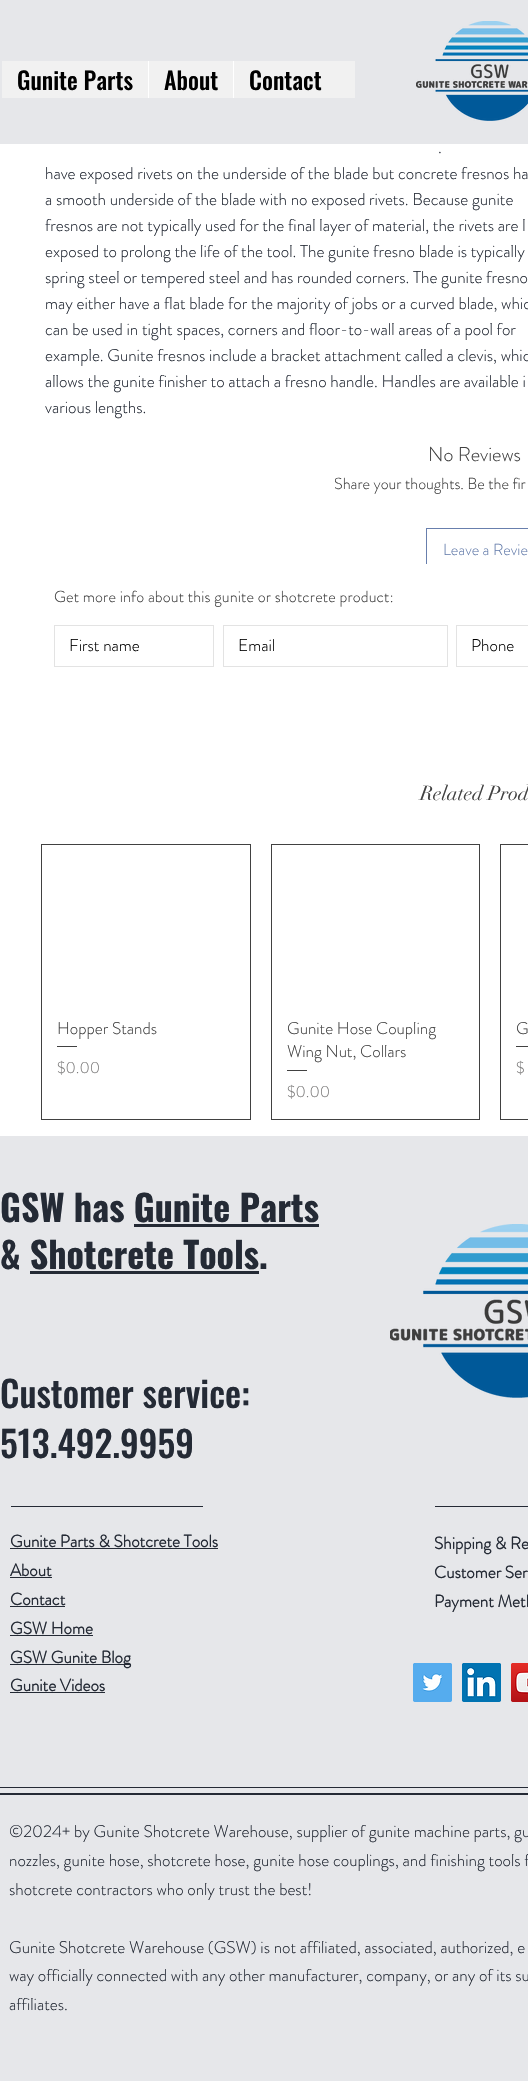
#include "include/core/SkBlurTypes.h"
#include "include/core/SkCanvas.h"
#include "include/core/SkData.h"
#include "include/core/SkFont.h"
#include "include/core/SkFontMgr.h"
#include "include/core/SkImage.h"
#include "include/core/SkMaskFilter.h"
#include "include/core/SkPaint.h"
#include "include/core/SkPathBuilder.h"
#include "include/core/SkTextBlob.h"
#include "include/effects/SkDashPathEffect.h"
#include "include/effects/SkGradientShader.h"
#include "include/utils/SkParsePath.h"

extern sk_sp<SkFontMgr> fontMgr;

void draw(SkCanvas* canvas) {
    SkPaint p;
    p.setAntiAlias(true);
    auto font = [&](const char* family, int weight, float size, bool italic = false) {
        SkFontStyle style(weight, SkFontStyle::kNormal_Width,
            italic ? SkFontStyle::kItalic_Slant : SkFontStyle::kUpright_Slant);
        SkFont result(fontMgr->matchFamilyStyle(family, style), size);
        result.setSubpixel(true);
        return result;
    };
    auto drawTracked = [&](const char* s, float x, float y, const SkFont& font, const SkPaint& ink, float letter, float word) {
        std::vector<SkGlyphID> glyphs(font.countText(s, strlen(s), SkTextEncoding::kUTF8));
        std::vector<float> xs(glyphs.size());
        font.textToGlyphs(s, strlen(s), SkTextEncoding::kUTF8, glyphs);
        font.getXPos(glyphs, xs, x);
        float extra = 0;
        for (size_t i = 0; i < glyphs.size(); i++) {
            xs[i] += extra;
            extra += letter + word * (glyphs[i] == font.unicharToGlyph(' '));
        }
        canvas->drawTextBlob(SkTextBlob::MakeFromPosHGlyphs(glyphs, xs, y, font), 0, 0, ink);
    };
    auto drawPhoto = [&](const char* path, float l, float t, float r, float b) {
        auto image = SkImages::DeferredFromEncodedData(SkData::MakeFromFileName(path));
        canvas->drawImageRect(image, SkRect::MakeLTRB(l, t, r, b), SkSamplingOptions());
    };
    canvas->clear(0xFFFFFFFF);
    p.setColor(0xFFE6E7EA);
    canvas->drawRect(SkRect::MakeLTRB(0, 0, 528, 144), p);
    p.setColor(0xFFF1F1F1);
    canvas->drawRect(SkRect::MakeLTRB(2, 61, 355, 98), p);
    auto font1 = font("Oswald", 500, 24);
    p.setColor(0xFF000000);
    canvas->drawString("Gunite Parts", 17, 90, font1, p);
    p.setColor(0xFFFFFFFF);
    canvas->drawRect(SkRect::MakeLTRB(148, 61, 149, 98), p);
    p.setColor(0xFF000000);
    canvas->drawString("About", 164, 90, font1, p);
    p.setColor(0xFFFFFFFF);
    canvas->drawRect(SkRect::MakeLTRB(233, 61, 234, 98), p);
    p.setColor(0xFF000000);
    canvas->drawString("Contact", 249, 90, font1, p);
    drawPhoto("media/1.png", 416, 21, 528, 121);
    auto font2 = font("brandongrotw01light", 300, 17);
    p.setColor(0xFF242A35);
    {
        const struct { const char* s; float x, y; } items[] = {
            {".", 438, 153},
            {"have exposed rivets on the underside of the blade but concrete fresnos ha", 45, 179},
            {"a smooth underside of the blade with no exposed rivets. Because gunite", 45, 205},
            {"fresnos are not typically used for the final layer of material, the rivets are l", 45, 231},
            {"exposed to prolong the life of the tool. The gunite fresno blade is typically", 45, 257},
            {"spring steel or tempered steel and has rounded corners. The gunite fresno", 45, 283},
            {"may either have a flat blade for the majority of jobs or a curved blade, whic", 45, 309},
            {"can be used in tight spaces, corners and floor-to-wall areas of a pool for", 45, 335},
            {"example. Gunite fresnos include a bracket attachment called a clevis, whic", 45, 361},
            {"allows the gunite finisher to attach a fresno handle. Handles are available i", 45, 387},
            {"various lengths.", 45, 413},
        };
        for (auto [s, x, y] : items) {
            canvas->drawString(s, x, y, font2, p);
        }
    }
    auto font3 = font("brandongrotw01light", 300, 20);
    p.setColor(0xFF414141);
    canvas->drawString("No Reviews", 428, 461, font3, p);
    auto font4 = font("brandongrotw01light", 300, 16);
    canvas->drawString("Share your thoughts. Be the fir", 334, 489, font4, p);
    p.setStyle(SkPaint::kStroke_Style);
    p.setStrokeWidth(1);
    p.setColor(0xFF687FAD);
    canvas->drawRect(SkRect::MakeLTRB(426.5f, 528.5f, 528.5f, 571.5f), p);
    p.setStyle(SkPaint::kFill_Style);
    canvas->drawString("Leave a Revie", 443, 555, font4, p);
    p.setColor(0xFFFFFFFF);
    canvas->drawRect(SkRect::MakeLTRB(426, 564, 528, 572), p);
    p.setColor(0xFF414141);
    drawTracked("Get more info about this gunite or shotcrete product:", 54, 602, font4, p, 0.15f, 0);
    p.setStyle(SkPaint::kStroke_Style);
    p.setColor(0xFFE3E3E3);
    canvas->drawRect(SkRect::MakeLTRB(54.5f, 625.5f, 213.5f, 666.5f), p);
    p.setStyle(SkPaint::kFill_Style);
    p.setColor(0xFF000000);
    canvas->drawString("First name", 69, 651, font2, p);
    p.setStyle(SkPaint::kStroke_Style);
    p.setColor(0xFFE3E3E3);
    canvas->drawRect(SkRect::MakeLTRB(223.5f, 625.5f, 447.5f, 666.5f), p);
    p.setStyle(SkPaint::kFill_Style);
    p.setColor(0xFF000000);
    canvas->drawString("Email", 238, 651, font2, p);
    p.setStyle(SkPaint::kStroke_Style);
    p.setColor(0xFFE3E3E3);
    canvas->drawRect(SkRect::MakeLTRB(456.5f, 625.5f, 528.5f, 666.5f), p);
    p.setStyle(SkPaint::kFill_Style);
    p.setColor(0xFF000000);
    canvas->drawString("Phone", 471, 651, font2, p);
    auto font5 = font("didot", 400, 20);
    p.setColor(0xFF414141);
    canvas->drawString("Related Prod", 420, 800, font5, p);
    p.setStyle(SkPaint::kStroke_Style);
    canvas->drawRect(SkRect::MakeLTRB(41.5f, 844.5f, 250.5f, 1119.5f), p);
    p.setStyle(SkPaint::kFill_Style);
    canvas->drawString("Hopper Stands", 57, 1034, font2, p);
    canvas->drawRect(SkRect::MakeLTRB(57, 1046, 77, 1047), p);
    p.setColor(0xFF7D7C7C);
    canvas->drawString("$0.00", 57, 1073, font4, p);
    p.setStyle(SkPaint::kStroke_Style);
    p.setColor(0xFF414141);
    canvas->drawRect(SkRect::MakeLTRB(271.5f, 844.5f, 479.5f, 1119.5f), p);
    p.setStyle(SkPaint::kFill_Style);
    canvas->drawString("Gunite Hose Coupling", 287, 1034, font2, p);
    canvas->drawString("Wing Nut, Collars", 287, 1057, font2, p);
    canvas->drawRect(SkRect::MakeLTRB(287, 1070, 307, 1071), p);
    p.setColor(0xFF7D7C7C);
    canvas->drawString("$0.00", 287, 1097, font4, p);
    p.setStyle(SkPaint::kStroke_Style);
    p.setColor(0xFF414141);
    canvas->drawRect(SkRect::MakeLTRB(500.5f, 844.5f, 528.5f, 1119.5f), p);
    p.setStyle(SkPaint::kFill_Style);
    canvas->drawString("G", 516, 1034, font2, p);
    canvas->drawRect(SkRect::MakeLTRB(516, 1046, 528, 1047), p);
    p.setColor(0xFF7D7C7C);
    canvas->drawString("$", 516, 1073, font4, p);
    p.setColor(0xFFE6E7EA);
    canvas->drawRect(SkRect::MakeLTRB(0, 1136, 528, 2081), p);
    auto font6 = font("Oswald", 700, 36);
    p.setColor(0xFF242A35);
    canvas->drawString("GSW has Gunite Parts", 0, 1222, font6, p);
    canvas->drawRect(SkRect::MakeLTRB(134, 1224, 319, 1227), p);
    canvas->drawString("& Shotcrete Tools.", 0, 1269, font6, p);
    canvas->drawRect(SkRect::MakeLTRB(30, 1271, 259, 1274), p);
    drawPhoto("media/2.png", 390, 1224, 528, 1398);
    auto font7 = font("Oswald", 500, 36);
    canvas->drawString("Customer service:", 0, 1408, font7, p);
    canvas->drawString("513.492.9959", 0, 1458, font7, p);
    canvas->drawRect(SkRect::MakeLTRB(11, 1506, 203, 1507), p);
    canvas->drawRect(SkRect::MakeLTRB(435, 1506, 528, 1507), p);
    auto font8 = font("brandongrotw01light", 700, 17);
    canvas->drawString("Gunite Parts & Shotcrete Tools", 10, 1547, font8, p);
    canvas->drawRect(SkRect::MakeLTRB(10, 1548, 218, 1549), p);
    canvas->drawString("About", 10, 1576, font8, p);
    canvas->drawRect(SkRect::MakeLTRB(10, 1577, 52, 1578), p);
    canvas->drawString("Contact", 10, 1605, font8, p);
    canvas->drawRect(SkRect::MakeLTRB(10, 1606, 65, 1607), p);
    canvas->drawString("GSW Home", 10, 1634, font8, p);
    canvas->drawRect(SkRect::MakeLTRB(10, 1635, 93, 1636), p);
    canvas->drawRect(SkRect::MakeLTRB(10, 1664, 131, 1665), p);
    canvas->drawString("GSW Gunite Blog", 10, 1663, font8, p);
    canvas->drawString("Gunite Videos", 10, 1691, font8, p);
    canvas->drawRect(SkRect::MakeLTRB(10, 1692, 105, 1693), p);
    {
        const struct { const char* s; float x, y; } items[] = {
            {"Shipping & Re", 434, 1549},
            {"Customer Ser", 434, 1578},
            {"Payment Meth", 434, 1607},
        };
        for (auto [s, x, y] : items) {
            canvas->drawString(s, x, y, font8, p);
        }
    }
    drawPhoto("media/3.png", 413, 1663, 452, 1702);
    drawPhoto("media/4.png", 462, 1663, 501, 1702);
    drawPhoto("media/5.png", 511, 1663, 528, 1702);
    canvas->drawRect(SkRect::MakeLTRB(0, 1787, 528, 1788), p);
    canvas->drawRect(SkRect::MakeLTRB(0, 1793, 528, 1795), p);
    {
        const struct { const char* s; float x, y; } items[] = {
            {"©2024+ by Gunite Shotcrete Warehouse, supplier of gunite machine parts, gu", 9, 1837},
            {"nozzles, gunite hose, shotcrete hose, gunite hose couplings, and finishing tools f", 9, 1866},
            {"shotcrete contractors who only trust the best!", 9, 1895},
            {"Gunite Shotcrete Warehouse (GSW) is not affiliated, associated, authorized, e", 9, 1953},
            {"way officially connected with any other manufacturer, company, or any of its su", 9, 1981},
            {"affiliates.", 9, 2010},
        };
        for (auto [s, x, y] : items) {
            canvas->drawString(s, x, y, font2, p);
        }
    }
}
